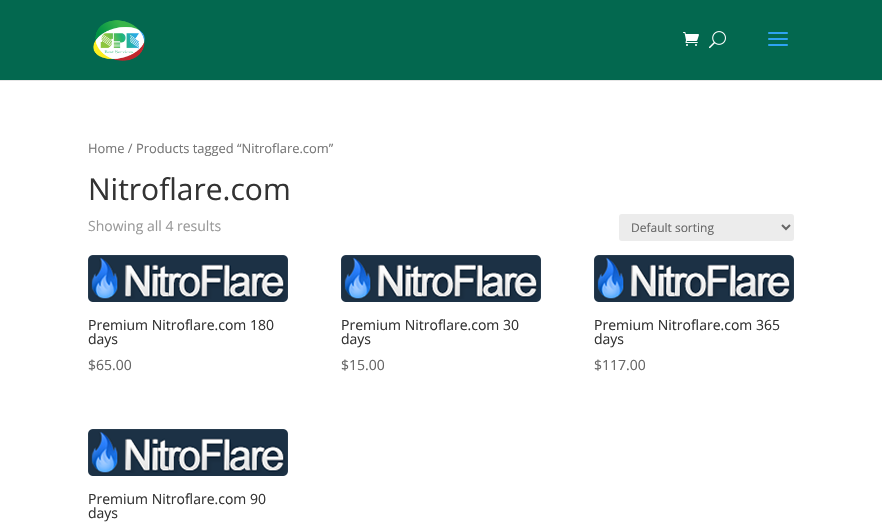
#include "include/core/SkBlurTypes.h"
#include "include/core/SkCanvas.h"
#include "include/core/SkData.h"
#include "include/core/SkFont.h"
#include "include/core/SkFontMgr.h"
#include "include/core/SkImage.h"
#include "include/core/SkMaskFilter.h"
#include "include/core/SkPaint.h"
#include "include/core/SkPathBuilder.h"
#include "include/core/SkTextBlob.h"
#include "include/effects/SkDashPathEffect.h"
#include "include/effects/SkGradientShader.h"
#include "include/utils/SkParsePath.h"

extern sk_sp<SkFontMgr> fontMgr;

void draw(SkCanvas* canvas) {
    SkPaint p;
    p.setAntiAlias(true);
    auto font = [&](const char* family, int weight, float size, bool italic = false) {
        SkFontStyle style(weight, SkFontStyle::kNormal_Width,
            italic ? SkFontStyle::kItalic_Slant : SkFontStyle::kUpright_Slant);
        SkFont result(fontMgr->matchFamilyStyle(family, style), size);
        result.setSubpixel(true);
        return result;
    };
    auto drawPhoto = [&](const char* path, float l, float t, float r, float b) {
        auto image = SkImages::DeferredFromEncodedData(SkData::MakeFromFileName(path));
        canvas->drawImageRect(image, SkRect::MakeLTRB(l, t, r, b), SkSamplingOptions());
    };
    canvas->clear(0xFFFFFFFF);
    p.setColor(0xFFE6E6E6);
    canvas->drawRect(SkRect::MakeLTRB(0, 80, 882, 81), p);
    p.setColor(0xFF03684F);
    canvas->drawRect(SkRect::MakeLTRB(0, 0, 882, 80), p);
    drawPhoto("media/1.png", 93, 20, 145, 61);
    drawPhoto("media/2.png", 683, 32, 699, 46);
    drawPhoto("media/3.png", 709, 31, 726, 49);
    drawPhoto("media/4.png", 768, 32, 788, 46);
    auto font1 = font("Open Sans", 400, 12.9f);
    p.setColor(0xFF767676);
    canvas->drawString("Home / Products tagged “Nitroflare.com”", 88, 153, font1, p);
    auto font2 = font("Open Sans", 400, 30);
    p.setColor(0xFF333333);
    canvas->drawString("Nitroflare.com", 88, 200, font2, p);
    auto font3 = font("Open Sans", 400, 14);
    p.setColor(0xFF999999);
    canvas->drawString("Showing all 4 results", 88, 231, font3, p);
    p.setColor(0xFFECECEC);
    canvas->drawRoundRect(SkRect::MakeLTRB(619, 214, 794, 241), 3, 3, p);
    p.setStyle(SkPaint::kStroke_Style);
    p.setStrokeWidth(2);
    p.setColor(0xFF666666);
    canvas->drawPath(SkPathBuilder().moveTo(782, 225).lineTo(786, 229).lineTo(790, 225).detach(), p);
    auto font4 = font("Open Sans", 400, 12);
    p.setStyle(SkPaint::kFill_Style);
    canvas->drawString("Default sorting", 631, 232, font4, p);
    drawPhoto("media/5.png", 88, 255, 288, 302);
    p.setColor(0xFF333333);
    canvas->drawString("Premium Nitroflare.com 180", 88, 330, font3, p);
    canvas->drawString("days", 88, 344, font3, p);
    p.setColor(0xFF666666);
    canvas->drawString("$65.00", 88, 370, font3, p);
    drawPhoto("media/5.png", 341, 255, 541, 302);
    p.setColor(0xFF333333);
    canvas->drawString("Premium Nitroflare.com 30", 341, 330, font3, p);
    canvas->drawString("days", 341, 344, font3, p);
    p.setColor(0xFF666666);
    canvas->drawString("$15.00", 341, 370, font3, p);
    drawPhoto("media/5.png", 594, 255, 794, 302);
    p.setColor(0xFF333333);
    canvas->drawString("Premium Nitroflare.com 365", 594, 330, font3, p);
    canvas->drawString("days", 594, 344, font3, p);
    p.setColor(0xFF666666);
    canvas->drawString("$117.00", 594, 370, font3, p);
    drawPhoto("media/5.png", 88, 429, 288, 476);
    p.setColor(0xFF333333);
    canvas->drawString("Premium Nitroflare.com 90", 88, 504, font3, p);
    canvas->drawString("days", 88, 518, font3, p);
}
